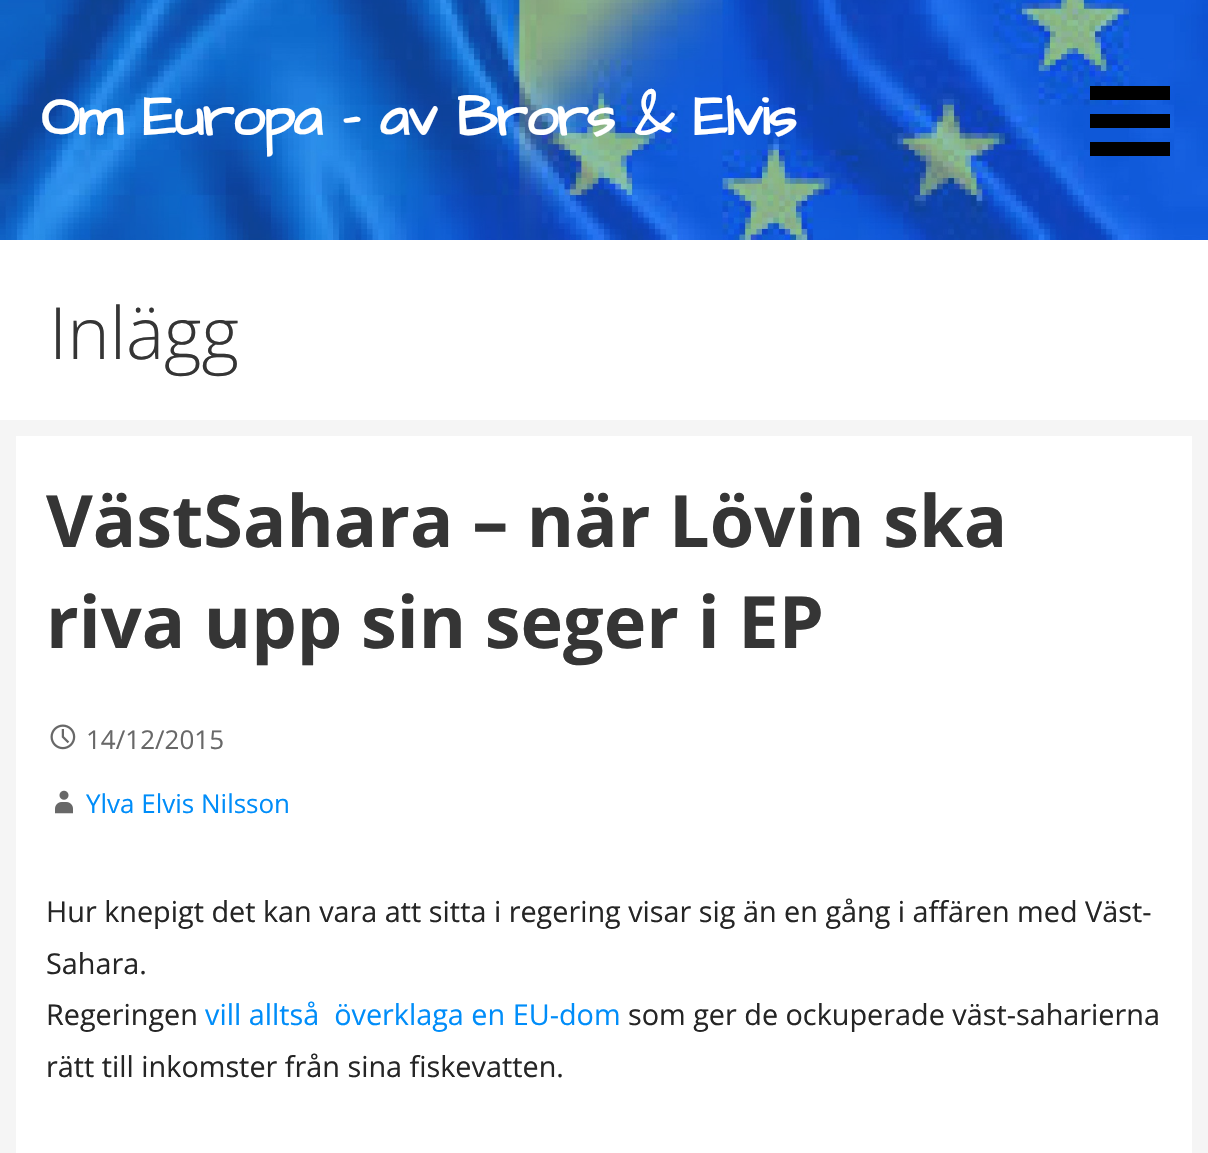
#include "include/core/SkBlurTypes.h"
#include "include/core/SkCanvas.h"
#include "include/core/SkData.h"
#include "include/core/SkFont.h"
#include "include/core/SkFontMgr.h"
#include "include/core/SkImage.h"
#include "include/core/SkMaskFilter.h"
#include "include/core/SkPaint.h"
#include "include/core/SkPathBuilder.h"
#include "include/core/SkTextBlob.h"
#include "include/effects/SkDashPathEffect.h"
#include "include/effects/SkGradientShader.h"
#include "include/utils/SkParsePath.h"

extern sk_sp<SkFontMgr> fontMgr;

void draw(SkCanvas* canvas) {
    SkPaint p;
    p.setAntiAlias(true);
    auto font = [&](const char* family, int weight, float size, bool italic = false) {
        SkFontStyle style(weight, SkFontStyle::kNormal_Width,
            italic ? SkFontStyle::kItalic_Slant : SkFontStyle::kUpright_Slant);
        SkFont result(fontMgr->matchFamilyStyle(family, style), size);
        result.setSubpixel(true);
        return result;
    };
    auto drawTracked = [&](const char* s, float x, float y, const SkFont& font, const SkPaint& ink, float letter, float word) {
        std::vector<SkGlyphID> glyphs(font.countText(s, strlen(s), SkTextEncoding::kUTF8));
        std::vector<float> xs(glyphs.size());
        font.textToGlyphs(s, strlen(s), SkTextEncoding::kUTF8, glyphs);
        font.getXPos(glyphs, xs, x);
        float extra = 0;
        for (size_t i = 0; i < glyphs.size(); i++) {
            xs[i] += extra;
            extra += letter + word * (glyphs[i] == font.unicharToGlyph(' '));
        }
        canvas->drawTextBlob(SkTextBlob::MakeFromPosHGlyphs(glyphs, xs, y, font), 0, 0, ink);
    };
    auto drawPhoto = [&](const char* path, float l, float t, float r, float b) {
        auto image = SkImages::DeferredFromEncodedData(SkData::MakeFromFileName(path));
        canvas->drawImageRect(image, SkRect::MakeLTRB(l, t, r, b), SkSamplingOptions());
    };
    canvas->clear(0xFFF5F5F5);
    drawPhoto("media/1.png", 0, 0, 1208, 240);
    auto font1 = font("Architects Daughter", 700, 57.6f);
    p.setColor(0xFFFFFFFF);
    drawTracked("Om Europa - av Brors & Elvis", 41, 135, font1, p, -1.75f, 0);
    {
        const struct { float l, t, r, b; SkColor color; } items[] = {
            {1090, 86, 1170, 100, 0xFF000000},
            {1090, 114, 1170, 128, 0xFF000000},
            {1090, 142, 1170, 156, 0xFF000000},
            {0, 240, 1208, 420, 0xFFFFFFFF},
        };
        for (auto [l, t, r, b, color] : items) {
            p.setColor(color);
            canvas->drawRect(SkRect::MakeLTRB(l, t, r, b), p);
        }
    }
    auto font2 = font("Open Sans", 300, 72);
    p.setColor(0xFF353535);
    canvas->drawString("Inlägg", 49, 359, font2, p);
    p.setColor(0xFFFFFFFF);
    canvas->drawRect(SkRect::MakeLTRB(16, 436, 1192, 1153), p);
    auto font3 = font("Open Sans", 700, 72);
    p.setColor(0xFF353535);
    canvas->drawString("VästSahara – när Lövin ska", 46, 547, font3, p);
    canvas->drawString("riva upp sin seger i EP", 46, 648, font3, p);
    drawPhoto("media/2.png", 50, 724, 76, 750);
    auto font4 = font("Open Sans", 400, 26);
    p.setColor(0xFF686868);
    canvas->drawString("14/12/2015", 86, 749, font4, p);
    drawPhoto("media/3.png", 55, 790, 73, 814);
    p.setColor(0xFF008DF9);
    canvas->drawString("Ylva Elvis Nilsson", 86, 813, font4, p);
    auto font5 = font("Open Sans", 400, 28.8f);
    p.setColor(0xFF252525);
    {
        const struct { const char* s; float x, y; } items[] = {
            {"Hur knepigt det kan vara att sitta i regering visar sig än en gång i affären med Väst-", 46, 922},
            {"Sahara.", 46, 974},
            {"Regeringen", 46, 1025},
        };
        for (auto [s, x, y] : items) {
            canvas->drawString(s, x, y, font5, p);
        }
    }
    p.setColor(0xFF008DF9);
    canvas->drawString("vill alltså  överklaga en EU-dom", 205, 1025, font5, p);
    p.setColor(0xFF252525);
    canvas->drawString("som ger de ockuperade väst-saharierna", 628, 1025, font5, p);
    canvas->drawString("rätt till inkomster från sina fiskevatten.", 46, 1077, font5, p);
}
